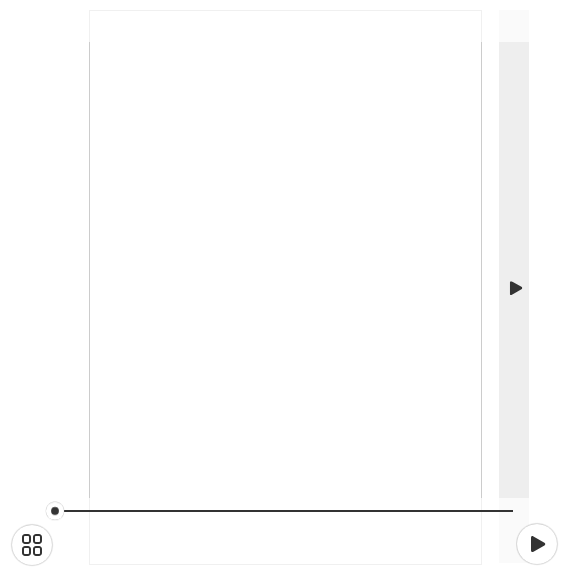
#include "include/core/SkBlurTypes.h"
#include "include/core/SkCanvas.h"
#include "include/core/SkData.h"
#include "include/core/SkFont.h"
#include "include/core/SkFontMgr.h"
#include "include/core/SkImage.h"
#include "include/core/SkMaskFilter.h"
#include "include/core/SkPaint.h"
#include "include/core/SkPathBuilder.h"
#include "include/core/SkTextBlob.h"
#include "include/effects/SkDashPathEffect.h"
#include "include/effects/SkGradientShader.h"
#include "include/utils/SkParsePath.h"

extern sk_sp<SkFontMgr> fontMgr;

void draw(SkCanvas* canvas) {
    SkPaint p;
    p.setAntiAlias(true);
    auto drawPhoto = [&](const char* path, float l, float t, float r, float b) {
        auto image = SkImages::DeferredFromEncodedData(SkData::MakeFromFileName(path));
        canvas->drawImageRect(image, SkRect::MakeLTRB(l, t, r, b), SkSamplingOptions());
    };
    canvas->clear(0xFFFFFFFF);
    p.setStyle(SkPaint::kStroke_Style);
    p.setStrokeWidth(1);
    p.setColor(0xFFCCCCCC);
    canvas->drawRect(SkRect::MakeLTRB(89.5f, 10.5f, 481.5f, 564.5f), p);
    p.setStyle(SkPaint::kFill_Style);
    p.setColor(0xFFEEEEEE);
    canvas->drawRect(SkRect::MakeLTRB(499, 10, 529, 563), p);
    drawPhoto("media/1.png", 509, 281, 523, 295);
    {
        const struct { float l, t, r, b; SkColor color; } items[] = {
            {89, 10, 529, 42, 0xB3FFFFFF},
            {89, 498, 529, 565, 0xB3FFFFFF},
            {55, 510, 513, 512, 0xFF333333},
        };
        for (auto [l, t, r, b, color] : items) {
            p.setColor(color);
            canvas->drawRect(SkRect::MakeLTRB(l, t, r, b), p);
        }
    }
    drawPhoto("media/2.png", 45, 501, 65, 521);
    drawPhoto("media/3.png", 10, 523, 54, 567);
    drawPhoto("media/4.png", 22, 534, 42, 556);
    drawPhoto("media/5.png", 516, 522, 559, 566);
    drawPhoto("media/6.png", 531, 536, 546, 552);
}
